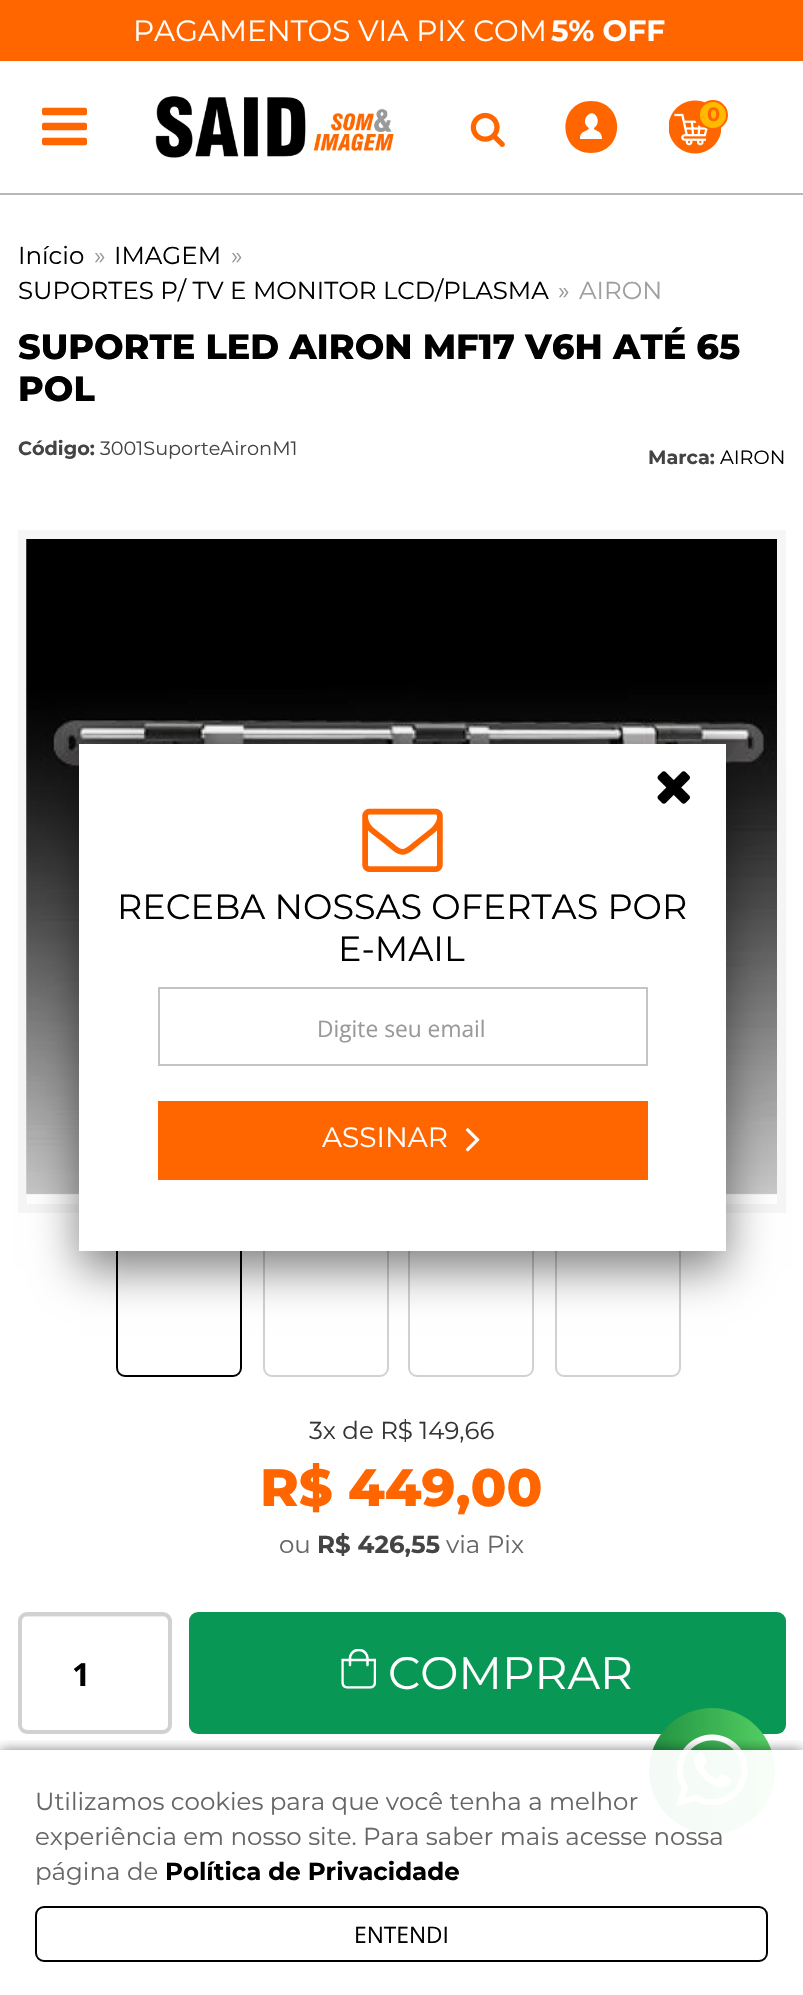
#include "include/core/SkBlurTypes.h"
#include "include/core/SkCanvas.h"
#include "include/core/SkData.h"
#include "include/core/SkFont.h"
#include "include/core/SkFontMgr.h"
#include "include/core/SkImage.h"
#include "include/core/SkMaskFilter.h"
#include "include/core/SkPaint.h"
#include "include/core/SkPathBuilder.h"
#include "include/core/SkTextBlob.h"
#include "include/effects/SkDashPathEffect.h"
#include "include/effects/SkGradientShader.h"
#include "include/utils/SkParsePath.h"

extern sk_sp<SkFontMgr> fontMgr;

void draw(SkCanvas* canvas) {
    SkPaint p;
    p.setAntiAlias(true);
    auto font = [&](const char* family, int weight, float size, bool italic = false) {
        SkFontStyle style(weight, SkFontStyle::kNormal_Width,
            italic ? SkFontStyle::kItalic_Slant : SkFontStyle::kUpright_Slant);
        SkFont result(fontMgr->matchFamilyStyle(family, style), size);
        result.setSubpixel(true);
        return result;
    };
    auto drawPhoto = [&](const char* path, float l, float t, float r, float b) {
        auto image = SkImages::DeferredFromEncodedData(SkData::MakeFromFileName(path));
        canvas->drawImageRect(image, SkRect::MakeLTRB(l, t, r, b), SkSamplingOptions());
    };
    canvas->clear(0xFFFFFFFF);
    p.setColor(0xFFFF6600);
    canvas->drawRect(SkRect::MakeLTRB(0, 0, 803, 61), p);
    auto font1 = font("Montserrat", 400, 29.4f);
    p.setColor(0xFFFFFFFF);
    canvas->drawString("PAGAMENTOS VIA PIX COM", 133, 41, font1, p);
    auto font2 = font("Montserrat", 700, 29.4f);
    canvas->drawString("5% OFF", 551, 41, font2, p);
    p.setColor(0xFFB8B8B8);
    canvas->drawRect(SkRect::MakeLTRB(0, 193, 803, 195), p);
    drawPhoto("media/1.png", 42, 107, 87, 146);
    drawPhoto("media/2.png", 155, 96, 394, 158);
    drawPhoto("media/3.png", 470, 112, 505, 147);
    p.setColor(0xFFFF6600);
    canvas->drawPath(SkPathBuilder().moveTo(591, 101).cubicTo(557, 101, 557, 153, 591, 153).cubicTo(626, 153, 626, 101, 591, 101).close().moveTo(591, 139).lineTo(580, 139).cubicTo(580, 130, 588, 132, 589, 128).cubicTo(587, 127, 586, 125, 585, 123).cubicTo(585, 120, 585, 118, 587, 116).cubicTo(594, 107, 603, 122, 594, 128).lineTo(594, 129).cubicTo(596, 131, 602, 131, 602, 139).close().detach(), p);
    drawPhoto("media/4.png", 669, 100, 721, 154);
    p.setColor(0xFFFFBA00);
    canvas->drawCircle(713, 115, 14, p);
    p.setStyle(SkPaint::kStroke_Style);
    p.setStrokeWidth(2);
    p.setColor(0xFFFF6600);
    canvas->drawCircle(713, 115, 14, p);
    auto font3 = font("Montserrat", 700, 19.25f);
    p.setStyle(SkPaint::kFill_Style);
    canvas->drawString("0", 707, 121, font3, p);
    auto font4 = font("Montserrat", 400, 24.5f);
    p.setColor(0xFF000000);
    canvas->drawString("Início", 18, 264, font4, p);
    p.setColor(0xFF999999);
    canvas->drawString("»", 94, 264, font4, p);
    p.setColor(0xFF000000);
    canvas->drawString("IMAGEM", 114, 264, font4, p);
    p.setColor(0xFF999999);
    canvas->drawString("»", 231, 264, font4, p);
    p.setColor(0xFF000000);
    canvas->drawString("SUPORTES P/ TV E MONITOR LCD/PLASMA", 18, 299, font4, p);
    p.setColor(0xFF999999);
    canvas->drawString("»", 558, 299, font4, p);
    p.setColor(0xFF9F9F9F);
    canvas->drawString("AIRON", 579, 299, font4, p);
    auto font5 = font("Montserrat", 800, 35);
    p.setColor(0xFF000000);
    canvas->drawString("SUPORTE LED AIRON MF17 V6H ATÉ 65", 18, 359, font5, p);
    canvas->drawString("POL", 18, 401, font5, p);
    p.setColor(0xFF444444);
    canvas->drawString("Código:", 18, 455, font3, p);
    auto font6 = font("Montserrat", 400, 19.25f);
    canvas->drawString("3001SuporteAironM1", 100, 455, font6, p);
    canvas->drawString("Marca:", 648, 464, font3, p);
    p.setColor(0xFF000000);
    canvas->drawString("AIRON", 720, 464, font6, p);
    p.setStyle(SkPaint::kStroke_Style);
    p.setStrokeWidth(9);
    p.setColor(0xFFF6F6F6);
    canvas->drawRect(SkRect::MakeLTRB(22.5f, 534.5f, 781.5f, 1208.5f), p);
    drawPhoto("media/5.png", 26, 539, 777, 1195);
    p.setStrokeWidth(2);
    p.setColor(0xFF000000);
    canvas->drawRoundRect(SkRect::MakeLTRB(117, 1235, 241, 1376), 8, 8, p);
    p.setColor(0xFFD1D1D1);
    canvas->drawRoundRect(SkRect::MakeLTRB(264, 1235, 388, 1376), 8, 8, p);
    canvas->drawRoundRect(SkRect::MakeLTRB(409, 1235, 533, 1376), 8, 8, p);
    canvas->drawRoundRect(SkRect::MakeLTRB(556, 1235, 680, 1376), 8, 8, p);
    p.setStyle(SkPaint::kFill_Style);
    p.setColor(0xFF353535);
    canvas->drawString("3x de R$ 149,66", 309, 1439, font4, p);
    auto font7 = font("Montserrat", 800, 52.5f);
    p.setColor(0xFFFF6600);
    canvas->drawString("R$ 449,00", 260, 1506, font7, p);
    p.setColor(0xFF666666);
    canvas->drawString("ou", 279, 1553, font4, p);
    auto font8 = font("Montserrat", 700, 24.5f);
    p.setColor(0xFF444444);
    canvas->drawString("R$ 426,55", 317, 1553, font8, p);
    p.setColor(0xFF666666);
    canvas->drawString("via Pix", 446, 1553, font4, p);
    p.setColor(0xFFECECEC);
    canvas->drawPath(SkPathBuilder().moveTo(26, 1617).lineTo(163, 1617).cubicTo(166, 1617, 168, 1619, 168, 1622).lineTo(168, 1620).cubicTo(168, 1617, 166, 1615, 163, 1615).lineTo(26, 1615).cubicTo(23, 1615, 21, 1617, 21, 1620).lineTo(21, 1622).cubicTo(21, 1619, 23, 1617, 26, 1617).close().detach(), p);
    p.setStyle(SkPaint::kStroke_Style);
    p.setStrokeWidth(4);
    p.setColor(0xFFD1D1D1);
    canvas->drawRoundRect(SkRect::MakeLTRB(20, 1614, 170, 1732), 7, 7, p);
    auto font9 = font("Open Sans", 700, 32);
    p.setStyle(SkPaint::kFill_Style);
    p.setColor(0xFF000000);
    canvas->drawString("1", 72, 1686, font9, p);
    p.setColor(0xFF089755);
    canvas->drawRoundRect(SkRect::MakeLTRB(189, 1612, 786, 1734), 9, 9, p);
    drawPhoto("media/6.png", 341, 1649, 376, 1689);
    auto font10 = font("Montserrat", 400, 45.5f);
    p.setColor(0xFFFFFFFF);
    canvas->drawString("COMPRAR", 388, 1689, font10, p);
    p.setColor(0x80000000);
    p.setMaskFilter(SkMaskFilter::MakeBlur(kNormal_SkBlurStyle, 22));
    canvas->drawRect(SkRect::MakeLTRB(79, 761, 726, 1269), p);
    p.setMaskFilter(nullptr);
    p.setColor(0xFFFFFFFF);
    canvas->drawRect(SkRect::MakeLTRB(79, 744, 726, 1251), p);
    drawPhoto("media/7.png", 657, 771, 690, 804);
    drawPhoto("media/8.png", 362, 808, 443, 872);
    auto font11 = font("Montserrat", 400, 35);
    p.setColor(0xFF000000);
    canvas->drawString("RECEBA NOSSAS OFERTAS POR", 117, 919, font11, p);
    canvas->drawString("E-MAIL", 338, 961, font11, p);
    p.setStyle(SkPaint::kStroke_Style);
    p.setStrokeWidth(2);
    p.setColor(0xFFC4C4C4);
    canvas->drawRect(SkRect::MakeLTRB(159, 988, 647, 1065), p);
    auto font12 = font("Open Sans", 400, 22.75f);
    p.setStyle(SkPaint::kFill_Style);
    p.setColor(0xFF999999);
    canvas->drawString("Digite seu email", 317, 1037, font12, p);
    p.setColor(0xFFFF6600);
    canvas->drawRect(SkRect::MakeLTRB(158, 1101, 648, 1180), p);
    auto font13 = font("Montserrat", 400, 28);
    p.setColor(0xFFFFFFFF);
    canvas->drawString("ASSINAR", 322, 1147, font13, p);
    drawPhoto("media/9.png", 465, 1128, 480, 1152);
    {
        const SkColor colors[] = {0xFF209142, 0xFF56D263};
        const float stops[] = {0, 1};
        const SkPoint ends[] = {{649, 1771}, {775, 1771}};
        p.setShader(SkGradientShader::MakeLinear(ends, colors, stops, 2, SkTileMode::kClamp));
        p.setAlpha(255);
    }
    canvas->drawCircle(712, 1771, 63, p);
    drawPhoto("media/10.png", 675, 1734, 748, 1807);
    canvas->save();
    canvas->clipRect(SkRect::MakeLTRB(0, 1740, 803, 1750));
    p.setShader(nullptr);
    p.setColor(0x80000000);
    p.setMaskFilter(SkMaskFilter::MakeBlur(kNormal_SkBlurStyle, 6));
    canvas->drawRect(SkRect::MakeLTRB(0, 1750, 803, 1995), p);
    p.setMaskFilter(nullptr);
    canvas->restore();
    p.setColor(0xF2FFFFFF);
    canvas->drawRect(SkRect::MakeLTRB(649, 1750, 775, 1834), p);
    p.setColor(0xFF666666);
    {
        const struct { const char* s; float x, y; } items[] = {
            {"Utilizamos cookies para que você tenha a melhor", 35, 1810},
            {"experiência em nosso site. Para saber mais acesse nossa", 35, 1845},
            {"página de", 35, 1880},
        };
        for (auto [s, x, y] : items) {
            canvas->drawString(s, x, y, font4, p);
        }
    }
    p.setColor(0xFF000000);
    canvas->drawString("Política de Privacidade", 165, 1880, font8, p);
    p.setStyle(SkPaint::kStroke_Style);
    canvas->drawRoundRect(SkRect::MakeLTRB(36, 1907, 767, 1961), 8, 8, p);
    p.setStyle(SkPaint::kFill_Style);
    canvas->drawString("ENTENDI", 354, 1943, font12, p);
}
